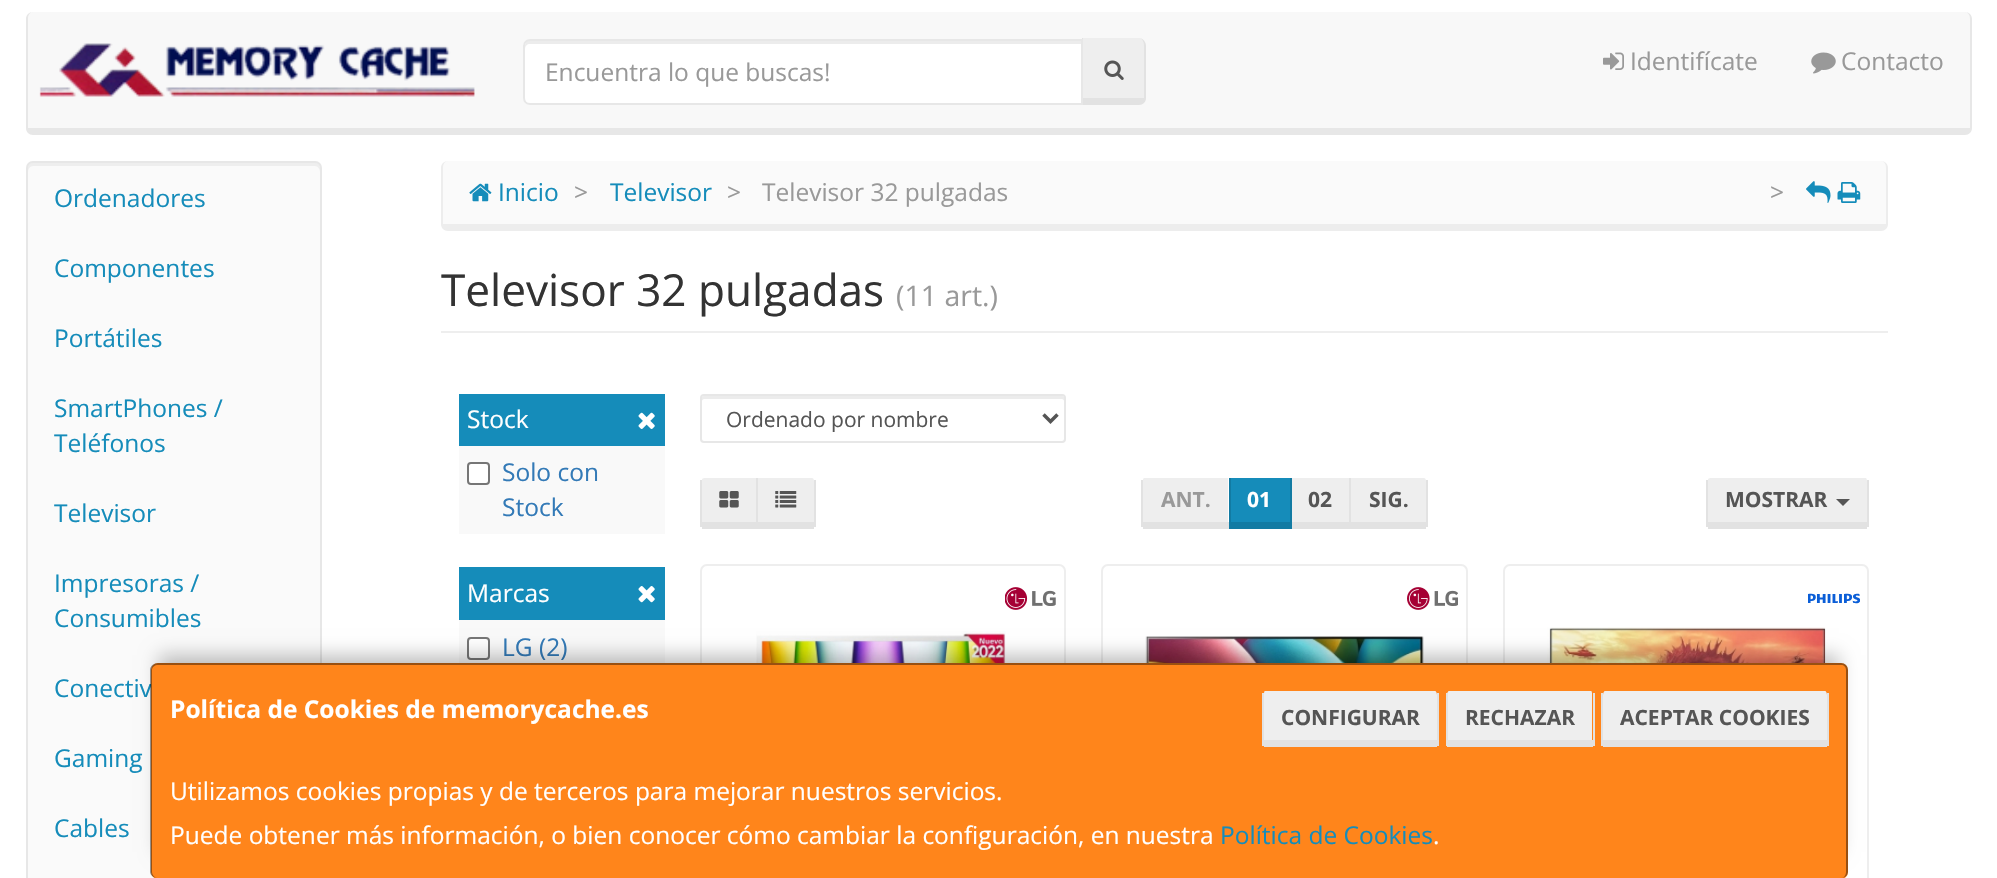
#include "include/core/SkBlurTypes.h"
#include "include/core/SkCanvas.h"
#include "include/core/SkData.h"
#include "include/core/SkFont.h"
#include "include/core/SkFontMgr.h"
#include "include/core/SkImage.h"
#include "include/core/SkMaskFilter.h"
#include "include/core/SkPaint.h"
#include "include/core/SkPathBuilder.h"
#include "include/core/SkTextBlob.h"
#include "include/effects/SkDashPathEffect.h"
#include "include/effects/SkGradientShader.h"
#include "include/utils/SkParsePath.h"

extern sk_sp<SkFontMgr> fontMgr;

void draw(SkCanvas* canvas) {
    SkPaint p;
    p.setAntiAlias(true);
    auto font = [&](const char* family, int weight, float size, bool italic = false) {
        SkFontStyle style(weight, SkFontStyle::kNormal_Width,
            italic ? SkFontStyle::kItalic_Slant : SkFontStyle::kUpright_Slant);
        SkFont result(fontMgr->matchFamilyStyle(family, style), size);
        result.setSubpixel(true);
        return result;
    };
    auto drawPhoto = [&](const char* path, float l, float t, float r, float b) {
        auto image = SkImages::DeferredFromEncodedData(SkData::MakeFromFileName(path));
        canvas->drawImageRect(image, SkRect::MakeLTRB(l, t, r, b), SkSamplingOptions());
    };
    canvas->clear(0xFFFFFFFF);
    p.setColor(0xFFF8F8F8);
    canvas->drawPath(SkPathBuilder().moveTo(33, 12).lineTo(1965, 12).cubicTo(1968, 12, 1970, 15, 1970, 19).lineTo(1970, 128).lineTo(28, 128).lineTo(28, 19).cubicTo(28, 15, 30, 12, 33, 12).close().detach(), p);
    p.setColor(0xFFE7E7E7);
    canvas->drawPath(SkPathBuilder(SkPathFillType::kEvenOdd).moveTo(33, 12).lineTo(1965, 12).cubicTo(1969, 12, 1972, 15, 1972, 19).lineTo(1972, 128).cubicTo(1972, 132, 1969, 135, 1965, 135).lineTo(33, 135).cubicTo(29, 135, 26, 132, 26, 128).lineTo(26, 19).cubicTo(26, 15, 29, 12, 33, 12).close().moveTo(33, 12).lineTo(1965, 12).cubicTo(1968, 12, 1970, 15, 1970, 19).lineTo(1970, 128).lineTo(28, 128).lineTo(28, 19).cubicTo(28, 15, 30, 12, 33, 12).close().detach(), p);
    drawPhoto("media/1.png", 39, 43, 475, 97);
    p.setColor(0xFFEEEEEE);
    canvas->drawPath(SkPathBuilder().moveTo(1083, 38).lineTo(1139, 38).cubicTo(1142, 38, 1144, 42, 1144, 46).lineTo(1144, 98).lineTo(1083, 98).close().detach(), p);
    p.setColor(0xFFE2E2E2);
    canvas->drawPath(SkPathBuilder(SkPathFillType::kEvenOdd).moveTo(1082, 38).lineTo(1139, 38).cubicTo(1143, 38, 1146, 42, 1146, 46).lineTo(1146, 98).cubicTo(1146, 102, 1143, 105, 1139, 105).lineTo(1082, 105).close().moveTo(1083, 38).lineTo(1139, 38).cubicTo(1142, 38, 1144, 42, 1144, 46).lineTo(1144, 98).lineTo(1083, 98).close().detach(), p);
    p.setColor(0xFFFFFFFF);
    canvas->drawPath(SkPathBuilder().moveTo(530, 39).lineTo(1083, 39).lineTo(1083, 105).lineTo(530, 105).cubicTo(526, 105, 523, 102, 523, 98).lineTo(523, 46).cubicTo(523, 42, 526, 39, 530, 39).close().detach(), p);
    p.setColor(0xFFECECEC);
    canvas->drawPath(SkPathBuilder().moveTo(530, 44).lineTo(1082, 44).lineTo(1082, 40).lineTo(530, 40).cubicTo(525, 40, 525, 45, 525, 49).cubicTo(525, 46, 527, 44, 530, 44).close().detach(), p);
    p.setStyle(SkPaint::kStroke_Style);
    p.setStrokeWidth(2);
    p.setColor(0xFFE7E7E7);
    canvas->drawPath(SkPathBuilder().moveTo(530, 40).lineTo(1082, 40).lineTo(1082, 104).lineTo(530, 104).cubicTo(526.5f, 104, 524, 101.5f, 524, 98).lineTo(524, 46).cubicTo(524, 42.5f, 526.5f, 40, 530, 40).close().detach(), p);
    auto font1 = font("Open Sans", 400, 24.5f);
    p.setStyle(SkPaint::kFill_Style);
    p.setColor(0xFF999999);
    canvas->drawString("Encuentra lo que buscas!", 545, 81, font1, p);
    drawPhoto("media/2.png", 1104, 60, 1124, 80);
    drawPhoto("media/3.png", 1603, 52, 1624, 70);
    canvas->drawString("Identifícate", 1630, 70, font1, p);
    drawPhoto("media/4.png", 1811, 52, 1836, 74);
    canvas->drawString("Contacto", 1841, 70, font1, p);
    p.setColor(0xFFFAFAFA);
    canvas->drawRoundRect(SkRect::MakeLTRB(26, 161, 322, 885), 7, 7, p);
    p.setColor(0xFFEEEEEE);
    canvas->drawPath(SkPathBuilder().moveTo(33, 166).lineTo(315, 166).cubicTo(318, 166, 320, 169, 320, 172).lineTo(320, 168).cubicTo(320, 165, 318, 163, 315, 163).lineTo(33, 163).cubicTo(30, 163, 28, 165, 28, 168).lineTo(28, 172).cubicTo(28, 169, 30, 166, 33, 166).close().detach(), p);
    p.setStyle(SkPaint::kStroke_Style);
    p.setColor(0xFFE7E7E7);
    canvas->drawRoundRect(SkRect::MakeLTRB(27, 162, 321, 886), 6, 6, p);
    p.setStyle(SkPaint::kFill_Style);
    p.setColor(0xFF158CBA);
    {
        const struct { const char* s; float x, y; } items[] = {
            {"Ordenadores", 54, 207},
            {"Componentes", 54, 277},
            {"Portátiles", 54, 347},
            {"SmartPhones /", 54, 417},
            {"Teléfonos", 54, 452},
            {"Televisor", 54, 522},
            {"Impresoras /", 54, 592},
            {"Consumibles", 54, 627},
            {"Conectiv", 54, 697},
            {"Gaming", 54, 767},
            {"Cables", 54, 837},
        };
        for (auto [s, x, y] : items) {
            canvas->drawString(s, x, y, font1, p);
        }
    }
    p.setColor(0xFFFAFAFA);
    canvas->drawPath(SkPathBuilder().moveTo(448, 161).lineTo(1881, 161).cubicTo(1884, 161, 1886, 164, 1886, 168).lineTo(1886, 224).lineTo(443, 224).lineTo(443, 168).cubicTo(443, 164, 445, 161, 448, 161).close().detach(), p);
    p.setColor(0xFFEDEDED);
    canvas->drawPath(SkPathBuilder(SkPathFillType::kEvenOdd).moveTo(448, 161).lineTo(1881, 161).cubicTo(1885, 161, 1888, 164, 1888, 168).lineTo(1888, 224).cubicTo(1888, 228, 1885, 231, 1881, 231).lineTo(448, 231).cubicTo(444, 231, 441, 228, 441, 224).lineTo(441, 168).cubicTo(441, 164, 444, 161, 448, 161).close().moveTo(448, 161).lineTo(1881, 161).cubicTo(1884, 161, 1886, 164, 1886, 168).lineTo(1886, 224).lineTo(443, 224).lineTo(443, 168).cubicTo(443, 164, 445, 161, 448, 161).close().detach(), p);
    drawPhoto("media/5.png", 469, 183, 492, 202);
    p.setColor(0xFF158CBA);
    canvas->drawString("Inicio", 498, 201, font1, p);
    p.setColor(0xFF999999);
    canvas->drawString(">", 574, 201, font1, p);
    p.setColor(0xFF158CBA);
    canvas->drawString("Televisor", 610, 201, font1, p);
    p.setColor(0xFF999999);
    {
        const struct { const char* s; float x, y; } items[] = {
            {">", 727, 201},
            {"Televisor 32 pulgadas", 762, 201},
            {">", 1770, 201},
        };
        for (auto [s, x, y] : items) {
            canvas->drawString(s, x, y, font1, p);
        }
    }
    drawPhoto("media/6.png", 1806, 181, 1831, 203);
    drawPhoto("media/7.png", 1837, 182, 1861, 203);
    p.setColor(0xFFEEEEEE);
    canvas->drawRect(SkRect::MakeLTRB(441, 331, 1888, 333), p);
    auto font2 = font("Open Sans", 400, 44.1f);
    p.setColor(0xFF333333);
    canvas->drawString("Televisor 32 pulgadas", 441, 306, font2, p);
    auto font3 = font("Open Sans", 400, 28.5f);
    p.setColor(0xFF999999);
    canvas->drawString("(11 art.)", 896, 306, font3, p);
    p.setColor(0xFF158CBA);
    canvas->drawRect(SkRect::MakeLTRB(459, 394, 665, 446), p);
    p.setColor(0xFFFFFFFF);
    canvas->drawString("Stock", 467, 428, font1, p);
    drawPhoto("media/8.png", 638, 412, 655, 429);
    p.setColor(0xFFF9F9F9);
    canvas->drawRect(SkRect::MakeLTRB(459, 446, 665, 534), p);
    p.setColor(0xFFFFFFFF);
    canvas->drawRoundRect(SkRect::MakeLTRB(468, 463, 489, 484), 3, 3, p);
    p.setStyle(SkPaint::kStroke_Style);
    p.setColor(0xFF767676);
    canvas->drawRoundRect(SkRect::MakeLTRB(468, 463, 489, 484), 3, 3, p);
    p.setStyle(SkPaint::kFill_Style);
    p.setColor(0xFF337AB7);
    canvas->drawString("Solo con", 502, 481, font1, p);
    canvas->drawString("Stock", 502, 516, font1, p);
    p.setColor(0xFF158CBA);
    canvas->drawRect(SkRect::MakeLTRB(459, 567, 665, 620), p);
    p.setColor(0xFFFFFFFF);
    canvas->drawString("Marcas", 467, 602, font1, p);
    drawPhoto("media/9.png", 638, 586, 655, 603);
    p.setColor(0xFFF9F9F9);
    canvas->drawRect(SkRect::MakeLTRB(459, 620, 665, 663), p);
    p.setColor(0xFFFFFFFF);
    canvas->drawRoundRect(SkRect::MakeLTRB(468, 638, 489, 659), 3, 3, p);
    p.setStyle(SkPaint::kStroke_Style);
    p.setColor(0xFF767676);
    canvas->drawRoundRect(SkRect::MakeLTRB(468, 638, 489, 659), 3, 3, p);
    p.setStyle(SkPaint::kFill_Style);
    p.setColor(0xFF337AB7);
    canvas->drawString("LG (2)", 502, 656, font1, p);
    p.setColor(0xFFECECEC);
    canvas->drawPath(SkPathBuilder().moveTo(704, 399).lineTo(1062, 399).cubicTo(1063, 399, 1064, 400, 1064, 401).lineTo(1064, 398).cubicTo(1064, 397, 1063, 396, 1062, 396).lineTo(704, 396).cubicTo(703, 396, 702, 397, 702, 398).lineTo(702, 401).cubicTo(702, 400, 703, 399, 704, 399).close().detach(), p);
    p.setStyle(SkPaint::kStroke_Style);
    p.setColor(0xFFE7E7E7);
    canvas->drawRoundRect(SkRect::MakeLTRB(701, 395, 1065, 442), 3, 3, p);
    p.setStrokeWidth(3.5f);
    p.setColor(0xFF555555);
    canvas->drawPath(SkPathBuilder().moveTo(1043.5f, 414.5f).lineTo(1050.5f, 421.5f).lineTo(1057.5f, 414.5f).detach(), p);
    auto font4 = font("Open Sans", 400, 21);
    p.setStyle(SkPaint::kFill_Style);
    canvas->drawString("Ordenado por nombre", 726, 427, font4, p);
    p.setColor(0xFFEEEEEE);
    canvas->drawPath(SkPathBuilder().moveTo(704, 478).lineTo(756, 478).lineTo(756, 522).lineTo(702, 522).lineTo(702, 479).close().detach(), p);
    {
        const struct { float l, t, r, b; SkColor color; } items[] = {
            {756, 478, 758, 529, 0xFFE2E2E2},
            {702, 522, 814, 529, 0xFFE2E2E2},
            {700, 480, 702, 527, 0xFFE2E2E2},
        };
        for (auto [l, t, r, b, color] : items) {
            p.setColor(color);
            canvas->drawRect(SkRect::MakeLTRB(l, t, r, b), p);
        }
    }
    drawPhoto("media/10.png", 719, 491, 739, 508);
    p.setColor(0xFFEEEEEE);
    canvas->drawPath(SkPathBuilder().moveTo(758, 478).lineTo(812, 478).cubicTo(813, 478, 814, 479, 814, 481).lineTo(814, 522).lineTo(758, 522).close().detach(), p);
    p.setColor(0xFFE2E2E2);
    canvas->drawRect(SkRect::MakeLTRB(814, 480, 816, 527), p);
    drawPhoto("media/11.png", 775, 491, 797, 508);
    p.setColor(0xFFEEEEEE);
    canvas->drawPath(SkPathBuilder().moveTo(1144, 478).lineTo(1228, 478).lineTo(1228, 522).lineTo(1143, 522).lineTo(1143, 479).close().detach(), p);
    p.setColor(0xFFE2E2E2);
    canvas->drawRect(SkRect::MakeLTRB(1143, 522, 1230, 529), p);
    canvas->drawRect(SkRect::MakeLTRB(1141, 480, 1143, 527), p);
    auto font5 = font("Open Sans", 700, 21);
    p.setColor(0xFF999999);
    canvas->drawString("ANT.", 1161, 507, font5, p);
    {
        const struct { float l, t, r, b; SkColor color; } items[] = {
            {1231, 478, 1290, 522, 0xFF158CBA},
            {1349, 478, 1351, 529, 0xFFE2E2E2},
            {1290, 522, 1426, 529, 0xFFE2E2E2},
            {1290, 478, 1292, 529, 0xFF127BA3},
            {1229, 522, 1292, 529, 0xFF127BA3},
            {1229, 478, 1231, 529, 0xFF127BA3},
        };
        for (auto [l, t, r, b, color] : items) {
            p.setColor(color);
            canvas->drawRect(SkRect::MakeLTRB(l, t, r, b), p);
        }
    }
    p.setColor(0xFFFFFFFF);
    canvas->drawString("01", 1247, 507, font5, p);
    p.setColor(0xFFEEEEEE);
    canvas->drawRect(SkRect::MakeLTRB(1292, 478, 1349, 522), p);
    p.setColor(0xFF555555);
    canvas->drawString("02", 1308, 507, font5, p);
    p.setColor(0xFFEEEEEE);
    canvas->drawPath(SkPathBuilder().moveTo(1351, 478).lineTo(1424, 478).cubicTo(1425, 478, 1426, 479, 1426, 481).lineTo(1426, 522).lineTo(1351, 522).close().detach(), p);
    p.setColor(0xFFE2E2E2);
    canvas->drawRect(SkRect::MakeLTRB(1426, 480, 1428, 527), p);
    p.setColor(0xFF555555);
    canvas->drawString("SIG.", 1369, 507, font5, p);
    p.setColor(0xFFEEEEEE);
    canvas->drawPath(SkPathBuilder().moveTo(1710, 478).lineTo(1866, 478).cubicTo(1866, 478, 1867, 479, 1867, 481).lineTo(1867, 522).lineTo(1708, 522).lineTo(1708, 479).close().detach(), p);
    {
        const struct { float l, t, r, b; SkColor color; } items[] = {
            {1867, 480, 1869, 527, 0xFFE2E2E2},
            {1708, 522, 1867, 529, 0xFFE2E2E2},
            {1706, 480, 1708, 527, 0xFFE2E2E2},
        };
        for (auto [l, t, r, b, color] : items) {
            p.setColor(color);
            canvas->drawRect(SkRect::MakeLTRB(l, t, r, b), p);
        }
    }
    p.setColor(0xFF555555);
    canvas->drawString("MOSTRAR", 1725, 507, font5, p);
    canvas->drawPath(SkPathBuilder().moveTo(1836, 499).lineTo(1850, 499).lineTo(1843, 506).close().detach(), p);
    p.setStyle(SkPaint::kStroke_Style);
    p.setStrokeWidth(2);
    p.setColor(0xFFEEEEEE);
    canvas->drawRoundRect(SkRect::MakeLTRB(701, 565, 1065, 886), 6, 6, p);
    drawPhoto("media/12.png", 1005, 587, 1056, 610);
    drawPhoto("media/13.png", 756, 631, 1006, 663);
    canvas->drawRoundRect(SkRect::MakeLTRB(1102, 565, 1467, 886), 6, 6, p);
    drawPhoto("media/14.png", 1407, 587, 1458, 610);
    drawPhoto("media/15.png", 1145, 636, 1424, 663);
    canvas->drawRoundRect(SkRect::MakeLTRB(1504, 565, 1868, 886), 6, 6, p);
    drawPhoto("media/16.png", 1808, 593, 1860, 604);
    drawPhoto("media/17.png", 1547, 627, 1826, 663);
    p.setStyle(SkPaint::kFill_Style);
    p.setColor(0x40000000);
    p.setMaskFilter(SkMaskFilter::MakeBlur(kNormal_SkBlurStyle, 9));
    canvas->drawRect(SkRect::MakeLTRB(159, 655, 1839, 852), p);
    p.setMaskFilter(nullptr);
    p.setColor(0xFFFF851B);
    canvas->drawRoundRect(SkRect::MakeLTRB(151, 663, 1848, 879), 7, 7, p);
    p.setColor(0x66000000);
    canvas->drawPath(SkPathBuilder(SkPathFillType::kEvenOdd).moveTo(158, 663).lineTo(1841, 663).cubicTo(1845, 663, 1848, 666, 1848, 670).lineTo(1848, 872).cubicTo(1848, 875, 1845, 878, 1841, 878).lineTo(158, 878).cubicTo(154, 878, 150, 875, 150, 872).lineTo(150, 670).cubicTo(150, 666, 154, 663, 158, 663).close().moveTo(158, 665).lineTo(1841, 665).cubicTo(1844, 665, 1846, 667, 1846, 670).lineTo(1846, 872).cubicTo(1846, 875, 1844, 878, 1841, 878).lineTo(158, 878).cubicTo(155, 878, 152, 875, 152, 872).lineTo(152, 670).cubicTo(152, 667, 155, 665, 158, 665).close().detach(), p);
    auto font6 = font("Open Sans", 700, 24.5f);
    p.setColor(0xFFFFFFFF);
    canvas->drawString("Política de Cookies de memorycache.es", 170, 718, font6, p);
    p.setColor(0xFFEEEEEE);
    canvas->drawPath(SkPathBuilder().moveTo(1265, 691).lineTo(1435, 691).cubicTo(1436, 691, 1437, 693, 1437, 695).lineTo(1437, 740).lineTo(1264, 740).lineTo(1264, 695).cubicTo(1264, 693, 1264, 691, 1265, 691).close().detach(), p);
    {
        const struct { float l, t, r, b; SkColor color; } items[] = {
            {1437, 693, 1439, 746, 0xFFE2E2E2},
            {1264, 740, 1437, 747, 0xFFE2E2E2},
            {1262, 693, 1264, 746, 0xFFE2E2E2},
        };
        for (auto [l, t, r, b, color] : items) {
            p.setColor(color);
            canvas->drawRect(SkRect::MakeLTRB(l, t, r, b), p);
        }
    }
    p.setColor(0xFF555555);
    canvas->drawString("CONFIGURAR", 1281, 725, font5, p);
    p.setColor(0xFFEEEEEE);
    canvas->drawPath(SkPathBuilder().moveTo(1449, 691).lineTo(1591, 691).cubicTo(1592, 691, 1592, 693, 1592, 695).lineTo(1592, 740).lineTo(1447, 740).lineTo(1447, 695).cubicTo(1447, 693, 1448, 691, 1449, 691).close().detach(), p);
    {
        const struct { float l, t, r, b; SkColor color; } items[] = {
            {1593, 693, 1595, 746, 0xFFE2E2E2},
            {1447, 740, 1593, 747, 0xFFE2E2E2},
            {1446, 693, 1448, 746, 0xFFE2E2E2},
        };
        for (auto [l, t, r, b, color] : items) {
            p.setColor(color);
            canvas->drawRect(SkRect::MakeLTRB(l, t, r, b), p);
        }
    }
    p.setColor(0xFF555555);
    canvas->drawString("RECHAZAR", 1465, 725, font5, p);
    p.setColor(0xFFEEEEEE);
    canvas->drawPath(SkPathBuilder().moveTo(1605, 691).lineTo(1825, 691).cubicTo(1826, 691, 1827, 693, 1827, 695).lineTo(1827, 740).lineTo(1603, 740).lineTo(1603, 695).cubicTo(1603, 693, 1604, 691, 1605, 691).close().detach(), p);
    {
        const struct { float l, t, r, b; SkColor color; } items[] = {
            {1827, 693, 1829, 746, 0xFFE2E2E2},
            {1603, 740, 1827, 747, 0xFFE2E2E2},
            {1601, 693, 1603, 746, 0xFFE2E2E2},
        };
        for (auto [l, t, r, b, color] : items) {
            p.setColor(color);
            canvas->drawRect(SkRect::MakeLTRB(l, t, r, b), p);
        }
    }
    p.setColor(0xFF555555);
    canvas->drawString("ACEPTAR COOKIES", 1620, 725, font5, p);
    p.setColor(0xFFFFFFFF);
    canvas->drawString("Utilizamos cookies propias y de terceros para mejorar nuestros servicios.", 170, 800, font1, p);
    canvas->drawString("Puede obtener más información, o bien conocer cómo cambiar la configuración, en nuestra", 170, 844, font1, p);
    p.setColor(0xFF158CBA);
    canvas->drawString("Política de Cookies", 1220, 844, font1, p);
    p.setColor(0xFFFFFFFF);
    canvas->drawString(".", 1433, 844, font1, p);
}
